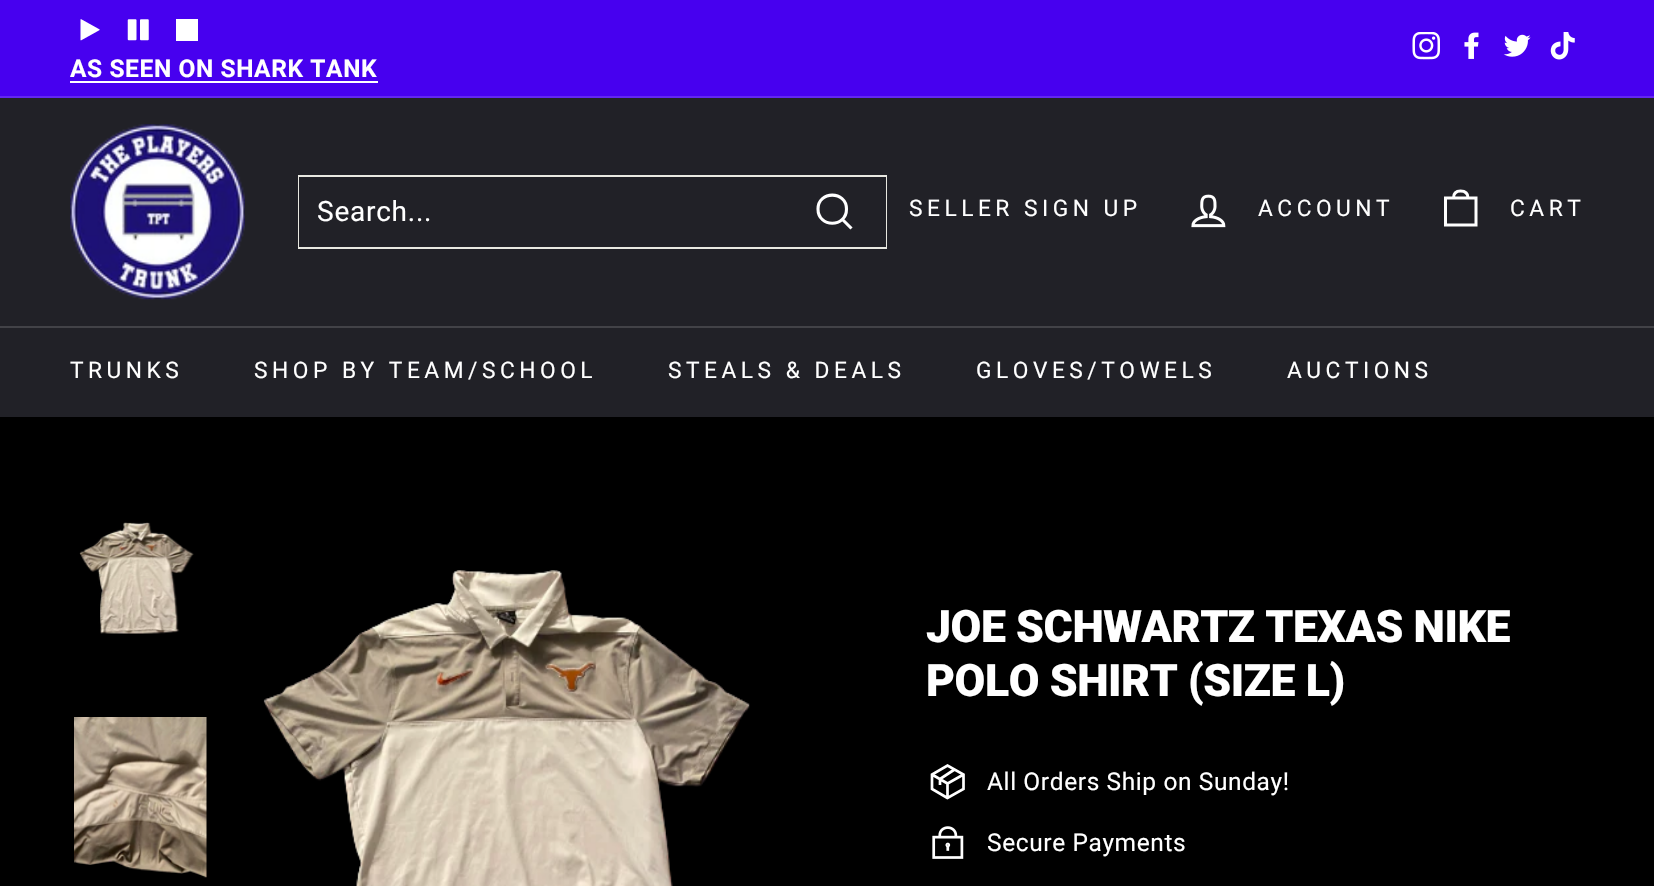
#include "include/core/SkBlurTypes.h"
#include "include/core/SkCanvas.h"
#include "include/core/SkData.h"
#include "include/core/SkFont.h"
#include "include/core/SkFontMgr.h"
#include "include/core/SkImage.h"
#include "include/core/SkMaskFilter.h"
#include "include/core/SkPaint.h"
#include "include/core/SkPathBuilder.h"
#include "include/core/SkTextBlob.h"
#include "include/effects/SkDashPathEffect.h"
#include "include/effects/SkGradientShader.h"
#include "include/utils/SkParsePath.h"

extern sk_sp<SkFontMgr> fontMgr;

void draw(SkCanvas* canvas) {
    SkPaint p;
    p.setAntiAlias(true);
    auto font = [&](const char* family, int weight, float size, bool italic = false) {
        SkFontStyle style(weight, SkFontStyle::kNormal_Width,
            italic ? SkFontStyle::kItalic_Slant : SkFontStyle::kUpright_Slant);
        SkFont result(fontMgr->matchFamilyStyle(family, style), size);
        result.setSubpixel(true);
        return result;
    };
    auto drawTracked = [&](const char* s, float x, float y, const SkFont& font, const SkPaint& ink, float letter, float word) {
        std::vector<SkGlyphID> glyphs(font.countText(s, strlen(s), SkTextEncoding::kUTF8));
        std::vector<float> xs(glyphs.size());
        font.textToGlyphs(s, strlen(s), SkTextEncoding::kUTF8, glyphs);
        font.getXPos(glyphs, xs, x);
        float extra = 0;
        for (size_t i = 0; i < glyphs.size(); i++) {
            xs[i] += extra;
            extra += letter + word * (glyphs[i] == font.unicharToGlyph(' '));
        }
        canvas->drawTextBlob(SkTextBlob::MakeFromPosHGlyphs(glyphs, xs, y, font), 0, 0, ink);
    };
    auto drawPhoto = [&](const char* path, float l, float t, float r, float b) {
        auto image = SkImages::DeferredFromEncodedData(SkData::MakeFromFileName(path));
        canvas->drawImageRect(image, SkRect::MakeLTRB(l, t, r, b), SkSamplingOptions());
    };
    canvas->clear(0xFF000000);
    p.setColor(0xFF4700EF);
    canvas->drawRect(SkRect::MakeLTRB(0, 0, 1654, 96), p);
    drawPhoto("media/1.png", 1412, 32, 1440, 60);
    drawPhoto("media/2.png", 1464, 32, 1479, 59);
    drawPhoto("media/3.png", 1503, 34, 1531, 57);
    drawPhoto("media/4.png", 1550, 32, 1575, 60);
    drawPhoto("media/5.png", 80, 19, 100, 41);
    drawPhoto("media/6.png", 127, 19, 149, 41);
    p.setColor(0xFFFFFFFF);
    canvas->drawRect(SkRect::MakeLTRB(176, 19, 198, 41), p);
    auto font1 = font("Roboto", 700, 24.5f);
    drawTracked("AS SEEN ON SHARK TANK", 70, 77, font1, p, 0.6f, 0);
    {
        const struct { float l, t, r, b; SkColor color; } items[] = {
            {70, 81, 378, 83, 0xFFFFFFFF},
            {0, 96, 1654, 98, 0xFF6326F1},
            {0, 98, 1654, 326, 0xFF212127},
        };
        for (auto [l, t, r, b, color] : items) {
            p.setColor(color);
            canvas->drawRect(SkRect::MakeLTRB(l, t, r, b), p);
        }
    }
    drawPhoto("media/7.png", 70, 124, 245, 300);
    p.setStyle(SkPaint::kStroke_Style);
    p.setStrokeWidth(2);
    p.setColor(0xFFE8E8E1);
    canvas->drawRect(SkRect::MakeLTRB(299, 176, 886, 248), p);
    p.setStyle(SkPaint::kFill_Style);
    p.setColor(0xFF212127);
    canvas->drawRect(SkRect::MakeLTRB(299, 177, 886, 247), p);
    auto font2 = font("Roboto", 400, 28);
    p.setColor(0xFFFFFFFF);
    drawTracked("Search...", 317, 221, font2, p, 0.75f, 0);
    p.setStyle(SkPaint::kStroke_Style);
    p.setStrokeWidth(3.1f);
    canvas->drawPath(SkPathBuilder().moveTo(846.5f, 209).cubicTo(846.5f, 228, 818, 228, 818, 209).cubicTo(818, 190.5f, 846.5f, 190.5f, 846.5f, 209).close().moveTo(851.5f, 228.5f).lineTo(842.5f, 219.5f).detach(), p);
    auto font3 = font("Roboto", 400, 22.75f);
    p.setStyle(SkPaint::kFill_Style);
    drawTracked("SELLER SIGN UP", 909, 216, font3, p, 4.5f, 0);
    drawPhoto("media/8.png", 1191, 194, 1226, 228);
    drawTracked("ACCOUNT", 1258, 216, font3, p, 4.5f, 0);
    p.setStyle(SkPaint::kStroke_Style);
    p.setStrokeWidth(3);
    canvas->drawPath(SkPathBuilder().moveTo(1453.5f, 198).cubicTo(1453.5f, 192.5f, 1456.5f, 191, 1460.5f, 191).cubicTo(1464.5f, 191, 1468, 192.5f, 1468, 198).moveTo(1445.5f, 198).lineTo(1476, 198).lineTo(1476, 225).lineTo(1445.5f, 225).close().detach(), p);
    p.setStyle(SkPaint::kFill_Style);
    drawTracked("CART", 1510, 216, font3, p, 4.5f, 0);
    p.setColor(0xFF212127);
    canvas->drawRect(SkRect::MakeLTRB(0, 328, 1654, 417), p);
    p.setColor(0xFF424247);
    canvas->drawRect(SkRect::MakeLTRB(0, 326, 1654, 328), p);
    p.setColor(0xFFFFFFFF);
    {
        const struct { const char* s; float x, y; } items[] = {
            {"TRUNKS", 70, 378},
            {"SHOP BY TEAM/SCHOOL", 254, 378},
            {"STEALS & DEALS", 668, 378},
            {"GLOVES/TOWELS", 976, 378},
            {"AUCTIONS", 1287, 378},
        };
        for (auto [s, x, y] : items) {
            drawTracked(s, x, y, font3, p, 4.5f, 0);
        }
    }
    drawPhoto("media/9.png", 79, 522, 194, 634);
    drawPhoto("media/10.png", 74, 717, 207, 878);
    drawPhoto("media/11.png", 263, 570, 750, 886);
    auto font4 = font("Roboto", 900, 44.6f);
    drawTracked("JOE SCHWARTZ TEXAS NIKE", 926, 642, font4, p, -0.45f, 0);
    drawTracked("POLO SHIRT (SIZE L)", 926, 696, font4, p, -0.45f, 0);
    p.setStyle(SkPaint::kStroke_Style);
    p.setStrokeWidth(2.7f);
    canvas->drawPath(SkPathBuilder().moveTo(947.5f, 798).lineTo(932, 789).lineTo(932, 774.5f).lineTo(947.5f, 765.5f).lineTo(963.5f, 774.5f).lineTo(963.5f, 789).close().moveTo(947.5f, 798).lineTo(947.5f, 783.5f).lineTo(963.5f, 774.5f).moveTo(947.5f, 783.5f).lineTo(932, 774.5f).moveTo(954.5f, 769.5f).lineTo(940, 779).lineTo(940, 785).detach(), p);
    auto font5 = font("Roboto", 400, 24.5f);
    p.setStyle(SkPaint::kFill_Style);
    drawTracked("All Orders Ship on Sunday!", 987, 790, font5, p, 0.6f, 0);
    drawPhoto("media/12.png", 932, 826, 964, 859);
    drawTracked("Secure Payments", 987, 851, font5, p, 0.6f, 0);
}
